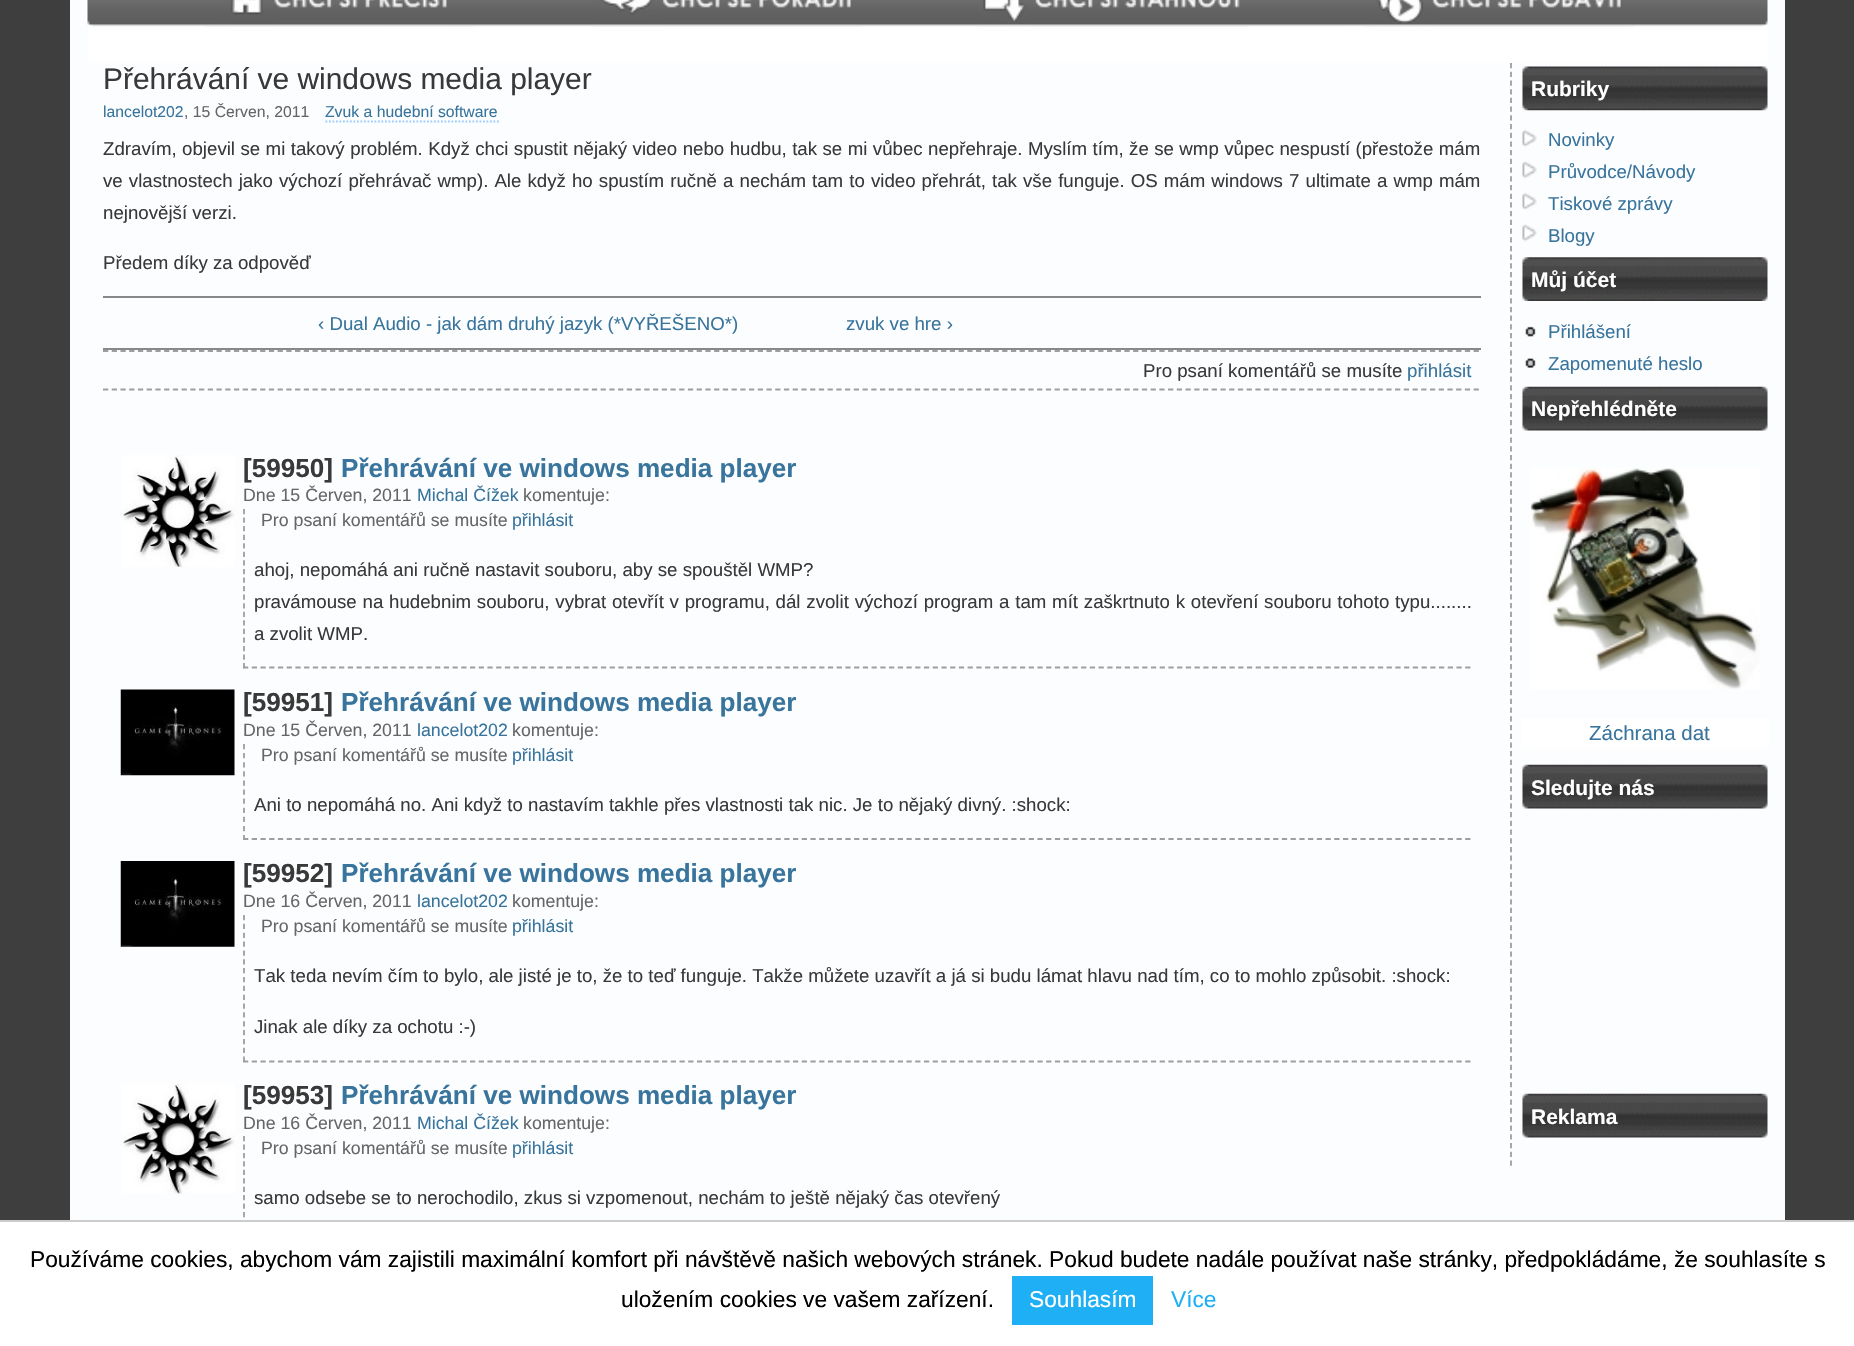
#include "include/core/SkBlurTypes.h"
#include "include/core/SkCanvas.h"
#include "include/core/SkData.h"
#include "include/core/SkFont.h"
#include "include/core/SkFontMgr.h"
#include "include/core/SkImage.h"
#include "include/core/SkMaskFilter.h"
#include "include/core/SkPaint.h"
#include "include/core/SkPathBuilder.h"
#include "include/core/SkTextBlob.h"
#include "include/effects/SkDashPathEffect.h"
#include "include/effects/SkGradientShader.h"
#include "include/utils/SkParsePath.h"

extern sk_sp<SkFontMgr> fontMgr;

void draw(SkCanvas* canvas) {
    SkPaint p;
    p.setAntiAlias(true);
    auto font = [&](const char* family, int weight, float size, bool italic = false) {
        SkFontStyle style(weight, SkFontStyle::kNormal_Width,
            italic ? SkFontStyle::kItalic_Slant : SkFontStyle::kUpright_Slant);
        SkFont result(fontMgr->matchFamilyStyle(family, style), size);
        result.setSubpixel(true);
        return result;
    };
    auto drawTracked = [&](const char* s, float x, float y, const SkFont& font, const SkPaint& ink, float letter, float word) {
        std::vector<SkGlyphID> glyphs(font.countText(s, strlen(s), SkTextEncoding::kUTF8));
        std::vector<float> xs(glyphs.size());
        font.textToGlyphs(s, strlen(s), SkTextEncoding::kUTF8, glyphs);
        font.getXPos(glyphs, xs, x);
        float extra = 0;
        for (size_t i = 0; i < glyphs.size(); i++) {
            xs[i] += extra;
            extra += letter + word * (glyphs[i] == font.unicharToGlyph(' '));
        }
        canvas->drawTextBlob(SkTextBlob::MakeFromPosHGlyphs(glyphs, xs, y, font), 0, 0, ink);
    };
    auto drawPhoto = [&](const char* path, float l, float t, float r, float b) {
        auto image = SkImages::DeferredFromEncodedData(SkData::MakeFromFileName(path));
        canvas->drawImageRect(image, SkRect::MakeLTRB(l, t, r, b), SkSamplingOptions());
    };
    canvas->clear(0xFF3E3E3E);
    {
        const struct { float l, t, r, b; SkColor color; } items[] = {
            {88, 0, 1768, 63, 0xFFFFFFFF},
            {1768, 0, 1785, 63, 0xFFFCFDFF},
            {70, 0, 88, 63, 0xFFFCFDFF},
        };
        for (auto [l, t, r, b, color] : items) {
            p.setColor(color);
            canvas->drawRect(SkRect::MakeLTRB(l, t, r, b), p);
        }
    }
    drawPhoto("media/1.png", 87, 0, 1768, 27);
    drawPhoto("media/2.png", 205, 0, 474, 27);
    drawPhoto("media/3.png", 592, 0, 861, 27);
    drawPhoto("media/4.png", 978, 0, 1248, 27);
    drawPhoto("media/5.png", 1365, 0, 1634, 27);
    canvas->drawRect(SkRect::MakeLTRB(70, 63, 1785, 1220), p);
    auto font1 = font("Liberation Sans", 400, 29.9f);
    p.setColor(0xFF393939);
    canvas->drawString("Přehrávání ve windows media player", 103, 89, font1, p);
    auto font2 = font("Liberation Sans", 400, 15.75f);
    p.setColor(0xFF38749C);
    canvas->drawString("lancelot202", 103, 117, font2, p);
    p.setColor(0xFF666666);
    canvas->drawString(", 15 Červen, 2011", 184, 117, font2, p);
    p.setColor(0xFF38749C);
    canvas->drawString("Zvuk a hudební software", 325, 117, font2, p);
    p.setStyle(SkPaint::kStroke_Style);
    p.setStrokeWidth(1.8f);
    p.setColor(0xFF99CCFF);
    p.setPathEffect(SkDashPathEffect::Make({{1.75f, 1.75f}}, 0));
    canvas->drawPath(SkPathBuilder().moveTo(325.5f, 121.5f).lineTo(499, 121.5f).detach(), p);
    p.setPathEffect(nullptr);
    auto font3 = font("Liberation Sans", 400, 18.67f);
    p.setStyle(SkPaint::kFill_Style);
    p.setColor(0xFF393939);
    drawTracked("Zdravím, objevil se mi takový problém. Když chci spustit nějaký video nebo hudbu, tak se mi vůbec nepřehraje. Myslím tím, že se wmp vůpec nespustí (přestože mám", 103, 155, font3, p, 0, 0.25f);
    drawTracked("ve vlastnostech jako výchozí přehrávač wmp). Ale když ho spustím ručně a nechám tam to video přehrát, tak vše funguje. OS mám windows 7 ultimate a wmp mám", 103, 187, font3, p, 0, 0.9f);
    canvas->drawString("nejnovější verzi.", 103, 219, font3, p);
    canvas->drawString("Předem díky za odpověď", 103, 269, font3, p);
    p.setColor(0xFF888888);
    canvas->drawRect(SkRect::MakeLTRB(103, 296, 1481, 298), p);
    canvas->drawRect(SkRect::MakeLTRB(103, 348, 1481, 350), p);
    p.setColor(0xFF38749C);
    canvas->drawString("‹ Dual Audio - jak dám druhý jazyk (*VYŘEŠENO*)", 318, 330, font3, p);
    canvas->drawString("zvuk ve hre ›", 846, 330, font3, p);
    p.setStyle(SkPaint::kStroke_Style);
    p.setColor(0xFF9E9E9E);
    p.setPathEffect(SkDashPathEffect::Make({{5.25f, 3.48f}}, 0));
    canvas->drawPath(SkPathBuilder().moveTo(103, 351).lineTo(1480.5f, 351).detach(), p);
    p.setPathEffect(nullptr);
    p.setPathEffect(SkDashPathEffect::Make({{5.25f, 3.48f}}, 0));
    canvas->drawPath(SkPathBuilder().moveTo(103, 389.5f).lineTo(1480.5f, 389.5f).detach(), p);
    p.setPathEffect(nullptr);
    p.setStyle(SkPaint::kFill_Style);
    p.setColor(0xFF393939);
    canvas->drawString("Pro psaní komentářů se musíte", 1143, 377, font3, p);
    p.setColor(0xFF38749C);
    canvas->drawString("přihlásit", 1407, 377, font3, p);
    drawPhoto("media/6.png", 121, 455, 235, 567);
    auto font4 = font("Liberation Sans", 700, 26.1f);
    p.setColor(0xFF393939);
    canvas->drawString("[59950]", 243, 477, font4, p);
    p.setColor(0xFF38749C);
    canvas->drawString("Přehrávání ve windows media player", 341, 477, font4, p);
    auto font5 = font("Liberation Sans", 400, 17.75f);
    p.setColor(0xFF666666);
    canvas->drawString("Dne 15 Červen, 2011", 243, 501, font5, p);
    p.setColor(0xFF38749C);
    canvas->drawString("Michal Čížek", 417, 501, font5, p);
    p.setColor(0xFF666666);
    canvas->drawString("komentuje:", 523, 501, font5, p);
    canvas->drawString("Pro psaní komentářů se musíte", 261, 526, font5, p);
    p.setColor(0xFF38749C);
    canvas->drawString("přihlásit", 512, 526, font5, p);
    p.setStyle(SkPaint::kStroke_Style);
    p.setColor(0xFF9E9E9E);
    p.setPathEffect(SkDashPathEffect::Make({{5.25f, 3.48f}}, 0));
    canvas->drawPath(SkPathBuilder().moveTo(243, 667.5f).lineTo(1472, 667.5f).detach(), p);
    p.setPathEffect(nullptr);
    p.setPathEffect(SkDashPathEffect::Make({{5.25f, 3.31f}}, 0));
    canvas->drawPath(SkPathBuilder().moveTo(244, 509).lineTo(244, 668.5f).detach(), p);
    p.setPathEffect(nullptr);
    p.setStyle(SkPaint::kFill_Style);
    p.setColor(0xFF393939);
    canvas->drawString("ahoj, nepomáhá ani ručně nastavit souboru, aby se spouštěl WMP?", 254, 576, font3, p);
    drawTracked("pravámouse na hudebnim souboru, vybrat otevřít v programu, dál zvolit výchozí program a tam mít zaškrtnuto k otevření souboru tohoto typu........", 254, 608, font3, p, 0, 0.6f);
    canvas->drawString("a zvolit WMP.", 254, 640, font3, p);
    drawPhoto("media/7.png", 120, 689, 235, 776);
    canvas->drawString("[59951]", 243, 711, font4, p);
    p.setColor(0xFF38749C);
    canvas->drawString("Přehrávání ve windows media player", 341, 711, font4, p);
    p.setColor(0xFF666666);
    canvas->drawString("Dne 15 Červen, 2011", 243, 736, font5, p);
    p.setColor(0xFF38749C);
    canvas->drawString("lancelot202", 417, 736, font5, p);
    p.setColor(0xFF666666);
    canvas->drawString("komentuje:", 512, 736, font5, p);
    canvas->drawString("Pro psaní komentářů se musíte", 261, 761, font5, p);
    p.setColor(0xFF38749C);
    canvas->drawString("přihlásit", 512, 761, font5, p);
    p.setStyle(SkPaint::kStroke_Style);
    p.setColor(0xFF9E9E9E);
    p.setPathEffect(SkDashPathEffect::Make({{5.25f, 3.48f}}, 0));
    canvas->drawPath(SkPathBuilder().moveTo(243, 839).lineTo(1472, 839).detach(), p);
    p.setPathEffect(nullptr);
    p.setPathEffect(SkDashPathEffect::Make({{5.25f, 3.85f}}, 0));
    canvas->drawPath(SkPathBuilder().moveTo(244, 744).lineTo(244, 840).detach(), p);
    p.setPathEffect(nullptr);
    p.setStyle(SkPaint::kFill_Style);
    p.setColor(0xFF393939);
    canvas->drawString("Ani to nepomáhá no. Ani když to nastavím takhle přes vlastnosti tak nic. Je to nějaký divný. :shock:", 254, 811, font3, p);
    drawPhoto("media/8.png", 120, 861, 235, 947);
    canvas->drawString("[59952]", 243, 882, font4, p);
    p.setColor(0xFF38749C);
    canvas->drawString("Přehrávání ve windows media player", 341, 882, font4, p);
    p.setColor(0xFF666666);
    canvas->drawString("Dne 16 Červen, 2011", 243, 907, font5, p);
    p.setColor(0xFF38749C);
    canvas->drawString("lancelot202", 417, 907, font5, p);
    p.setColor(0xFF666666);
    canvas->drawString("komentuje:", 512, 907, font5, p);
    canvas->drawString("Pro psaní komentářů se musíte", 261, 932, font5, p);
    p.setColor(0xFF38749C);
    canvas->drawString("přihlásit", 512, 932, font5, p);
    p.setStyle(SkPaint::kStroke_Style);
    p.setColor(0xFF9E9E9E);
    p.setPathEffect(SkDashPathEffect::Make({{5.25f, 3.48f}}, 0));
    canvas->drawPath(SkPathBuilder().moveTo(243, 1061.5f).lineTo(1472, 1061.5f).detach(), p);
    p.setPathEffect(nullptr);
    p.setPathEffect(SkDashPathEffect::Make({{5.25f, 3.6f}}, 0));
    canvas->drawPath(SkPathBuilder().moveTo(244, 915).lineTo(244, 1062).detach(), p);
    p.setPathEffect(nullptr);
    p.setStyle(SkPaint::kFill_Style);
    p.setColor(0xFF393939);
    canvas->drawString("Tak teda nevím čím to bylo, ale jisté je to, že to teď funguje. Takže můžete uzavřít a já si budu lámat hlavu nad tím, co to mohlo způsobit. :shock:", 254, 982, font3, p);
    canvas->drawString("Jinak ale díky za ochotu :-)", 254, 1033, font3, p);
    drawPhoto("media/9.png", 121, 1083, 235, 1194);
    canvas->drawString("[59953]", 243, 1104, font4, p);
    p.setColor(0xFF38749C);
    canvas->drawString("Přehrávání ve windows media player", 341, 1104, font4, p);
    p.setColor(0xFF666666);
    canvas->drawString("Dne 16 Červen, 2011", 243, 1129, font5, p);
    p.setColor(0xFF38749C);
    canvas->drawString("Michal Čížek", 417, 1129, font5, p);
    p.setColor(0xFF666666);
    canvas->drawString("komentuje:", 523, 1129, font5, p);
    canvas->drawString("Pro psaní komentářů se musíte", 261, 1154, font5, p);
    p.setColor(0xFF38749C);
    canvas->drawString("přihlásit", 512, 1154, font5, p);
    p.setStyle(SkPaint::kStroke_Style);
    p.setColor(0xFF9E9E9E);
    p.setPathEffect(SkDashPathEffect::Make({{5.25f, 3.19f}}, 0));
    canvas->drawPath(SkPathBuilder().moveTo(244, 1136).lineTo(244, 1234).detach(), p);
    p.setPathEffect(nullptr);
    p.setStyle(SkPaint::kFill_Style);
    p.setColor(0xFF393939);
    canvas->drawString("samo odsebe se to nerochodilo, zkus si vzpomenout, nechám to ještě nějaký čas otevřený", 254, 1204, font3, p);
    p.setStyle(SkPaint::kStroke_Style);
    p.setColor(0xFF9E9E9E);
    p.setPathEffect(SkDashPathEffect::Make({{5.25f, 3.46f}}, 0));
    canvas->drawPath(SkPathBuilder().moveTo(1511, 63).lineTo(1511, 1167).detach(), p);
    p.setPathEffect(nullptr);
    drawPhoto("media/10.png", 1522, 66, 1768, 111);
    auto font6 = font("Liberation Sans", 700, 21);
    p.setStyle(SkPaint::kFill_Style);
    p.setColor(0xFFFFFFFF);
    canvas->drawString("Rubriky", 1531, 96, font6, p);
    drawPhoto("media/11.png", 1522, 129, 1537, 147);
    p.setColor(0xFF38749C);
    canvas->drawString("Novinky", 1548, 146, font3, p);
    drawPhoto("media/12.png", 1522, 161, 1537, 179);
    canvas->drawString("Průvodce/Návody", 1548, 178, font3, p);
    drawPhoto("media/11.png", 1522, 192, 1537, 210);
    canvas->drawString("Tiskové zprávy", 1548, 210, font3, p);
    drawPhoto("media/12.png", 1522, 224, 1537, 242);
    canvas->drawString("Blogy", 1548, 242, font3, p);
    drawPhoto("media/13.png", 1522, 257, 1768, 301);
    p.setColor(0xFFFFFFFF);
    canvas->drawString("Můj účet", 1531, 287, font6, p);
    drawPhoto("media/14.png", 1525, 326, 1536, 337);
    p.setColor(0xFF38749C);
    canvas->drawString("Přihlášení", 1548, 338, font3, p);
    drawPhoto("media/15.png", 1525, 358, 1536, 368);
    canvas->drawString("Zapomenuté heslo", 1548, 370, font3, p);
    drawPhoto("media/16.png", 1522, 386, 1768, 431);
    p.setColor(0xFFFFFFFF);
    canvas->drawString("Nepřehlédněte", 1531, 416, font6, p);
    drawPhoto("media/17.png", 1530, 468, 1760, 690);
    canvas->drawRect(SkRect::MakeLTRB(1521, 718, 1769, 749), p);
    auto font7 = font("Liberation Sans", 400, 20.5f);
    p.setColor(0xFF38749C);
    canvas->drawString("Záchrana dat", 1589, 740, font7, p);
    drawPhoto("media/16.png", 1522, 764, 1768, 809);
    p.setColor(0xFFFFFFFF);
    canvas->drawString("Sledujte nás", 1531, 795, font6, p);
    drawPhoto("media/16.png", 1522, 1093, 1768, 1138);
    canvas->drawString("Reklama", 1531, 1124, font6, p);
    canvas->drawRect(SkRect::MakeLTRB(0, 1222, 1854, 1346), p);
    p.setColor(0xFFCCCCCC);
    canvas->drawRect(SkRect::MakeLTRB(0, 1220, 1854, 1222), p);
    auto font8 = font("Liberation Sans", 400, 22.75f);
    p.setColor(0xFF000000);
    canvas->drawString("Používáme cookies, abychom vám zajistili maximální komfort při návštěvě našich webových stránek. Pokud budete nadále používat naše stránky, předpokládáme, že souhlasíte s", 30, 1267, font8, p);
    canvas->drawString("uložením cookies ve vašem zařízení.", 621, 1307, font8, p);
    p.setColor(0xFF1FAFF5);
    canvas->drawRect(SkRect::MakeLTRB(1012, 1276, 1153, 1325), p);
    p.setColor(0xFFFFFFFF);
    canvas->drawString("Souhlasím", 1029, 1307, font8, p);
    p.setColor(0xFF1FAFF5);
    canvas->drawString("Více", 1171, 1307, font8, p);
}
